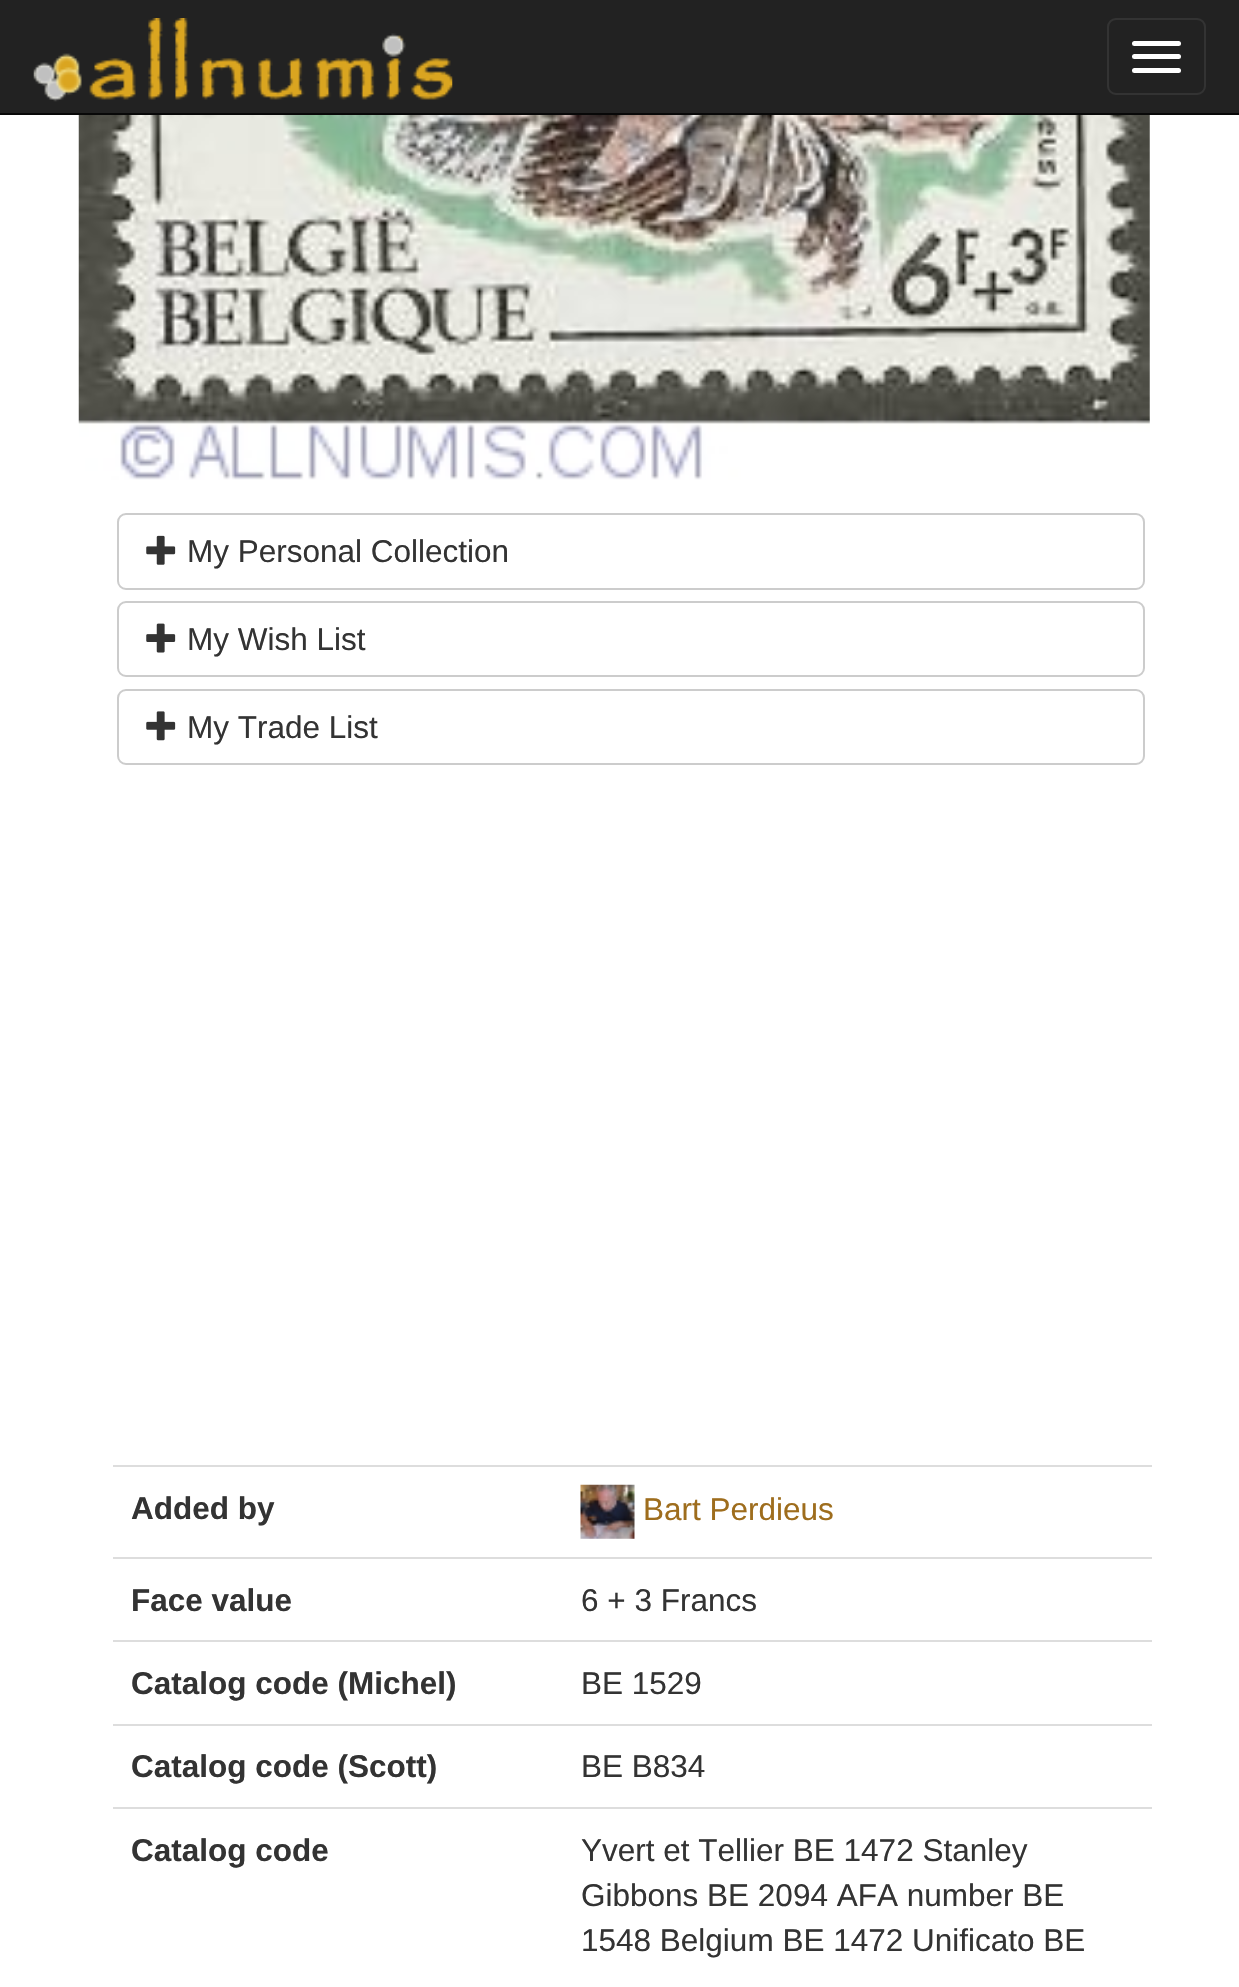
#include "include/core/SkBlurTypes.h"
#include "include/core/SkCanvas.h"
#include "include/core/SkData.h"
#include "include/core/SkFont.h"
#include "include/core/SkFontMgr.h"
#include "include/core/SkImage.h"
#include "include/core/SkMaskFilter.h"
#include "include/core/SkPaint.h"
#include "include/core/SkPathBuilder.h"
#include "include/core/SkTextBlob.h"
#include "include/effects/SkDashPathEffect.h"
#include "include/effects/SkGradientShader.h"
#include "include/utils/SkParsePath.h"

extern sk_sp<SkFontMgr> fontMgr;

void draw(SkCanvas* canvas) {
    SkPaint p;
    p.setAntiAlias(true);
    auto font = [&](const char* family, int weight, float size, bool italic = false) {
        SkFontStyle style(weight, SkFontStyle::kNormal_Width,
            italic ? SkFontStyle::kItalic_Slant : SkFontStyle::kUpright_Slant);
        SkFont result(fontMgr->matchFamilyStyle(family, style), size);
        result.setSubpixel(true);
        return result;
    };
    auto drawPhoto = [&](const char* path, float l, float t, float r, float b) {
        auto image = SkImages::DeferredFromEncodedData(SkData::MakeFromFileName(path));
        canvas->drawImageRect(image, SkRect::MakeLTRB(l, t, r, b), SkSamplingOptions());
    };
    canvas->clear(0xFFFFFFFF);
    p.setColor(0xFF222222);
    canvas->drawRect(SkRect::MakeLTRB(0, 0, 1239, 113), p);
    p.setColor(0xFF080808);
    canvas->drawRect(SkRect::MakeLTRB(0, 113, 1239, 115), p);
    drawPhoto("media/1.png", 33, 18, 453, 102);
    p.setStyle(SkPaint::kStroke_Style);
    p.setStrokeWidth(2);
    p.setColor(0xFF333333);
    canvas->drawRoundRect(SkRect::MakeLTRB(1108, 19, 1205, 94), 8, 8, p);
    p.setStyle(SkPaint::kFill_Style);
    p.setColor(0xFFFFFFFF);
    canvas->drawRoundRect(SkRect::MakeLTRB(1132, 41, 1181, 46), 2.5f, 2.5f, p);
    canvas->drawRoundRect(SkRect::MakeLTRB(1132, 54, 1181, 59), 2.5f, 2.5f, p);
    canvas->drawRoundRect(SkRect::MakeLTRB(1132, 68, 1181, 73), 2.5f, 2.5f, p);
    drawPhoto("media/2.png", 78, 115, 1150, 480);
    p.setStyle(SkPaint::kStroke_Style);
    p.setColor(0xFFCCCCCC);
    canvas->drawRoundRect(SkRect::MakeLTRB(118, 514, 1144, 589), 8, 8, p);
    drawPhoto("media/3.png", 146, 535, 176, 565);
    auto font1 = font("Liberation Sans", 400, 31.5f);
    p.setStyle(SkPaint::kFill_Style);
    p.setColor(0xFF333333);
    canvas->drawString("My Personal Collection", 187, 562, font1, p);
    p.setStyle(SkPaint::kStroke_Style);
    p.setColor(0xFFCCCCCC);
    canvas->drawRoundRect(SkRect::MakeLTRB(118, 602, 1144, 676), 8, 8, p);
    drawPhoto("media/4.png", 146, 623, 176, 653);
    p.setStyle(SkPaint::kFill_Style);
    p.setColor(0xFF333333);
    canvas->drawString("My Wish List", 187, 650, font1, p);
    p.setStyle(SkPaint::kStroke_Style);
    p.setColor(0xFFCCCCCC);
    canvas->drawRoundRect(SkRect::MakeLTRB(118, 690, 1144, 764), 8, 8, p);
    drawPhoto("media/5.png", 146, 711, 176, 741);
    p.setStyle(SkPaint::kFill_Style);
    p.setColor(0xFF333333);
    canvas->drawString("My Trade List", 187, 738, font1, p);
    auto font2 = font("Liberation Sans", 700, 31.5f);
    canvas->drawString("Added by", 131, 1519, font2, p);
    p.setColor(0xFFDDDDDD);
    canvas->drawRect(SkRect::MakeLTRB(113, 1465, 1152, 1467), p);
    drawPhoto("media/6.png", 580, 1484, 635, 1539);
    p.setColor(0xFF9E6D1D);
    canvas->drawString("Bart Perdieus", 643, 1520, font1, p);
    p.setColor(0xFF333333);
    canvas->drawString("Face value", 131, 1611, font2, p);
    p.setColor(0xFFDDDDDD);
    canvas->drawRect(SkRect::MakeLTRB(113, 1557, 1152, 1559), p);
    p.setColor(0xFF333333);
    canvas->drawString("6 + 3 Francs", 581, 1611, font1, p);
    canvas->drawString("Catalog code (Michel)", 131, 1694, font2, p);
    p.setColor(0xFFDDDDDD);
    canvas->drawRect(SkRect::MakeLTRB(113, 1640, 1152, 1642), p);
    p.setColor(0xFF333333);
    canvas->drawString("BE 1529", 581, 1694, font1, p);
    canvas->drawString("Catalog code (Scott)", 131, 1777, font2, p);
    p.setColor(0xFFDDDDDD);
    canvas->drawRect(SkRect::MakeLTRB(113, 1724, 1152, 1726), p);
    p.setColor(0xFF333333);
    canvas->drawString("BE B834", 581, 1777, font1, p);
    canvas->drawString("Catalog code", 131, 1861, font2, p);
    p.setColor(0xFFDDDDDD);
    canvas->drawRect(SkRect::MakeLTRB(113, 1807, 1152, 1809), p);
    p.setColor(0xFF333333);
    {
        const struct { const char* s; float x, y; } items[] = {
            {"Yvert et Tellier BE 1472 Stanley", 581, 1861},
            {"Gibbons BE 2094 AFA number BE", 581, 1906},
            {"1548 Belgium BE 1472 Unificato BE", 581, 1951},
        };
        for (auto [s, x, y] : items) {
            canvas->drawString(s, x, y, font1, p);
        }
    }
}
